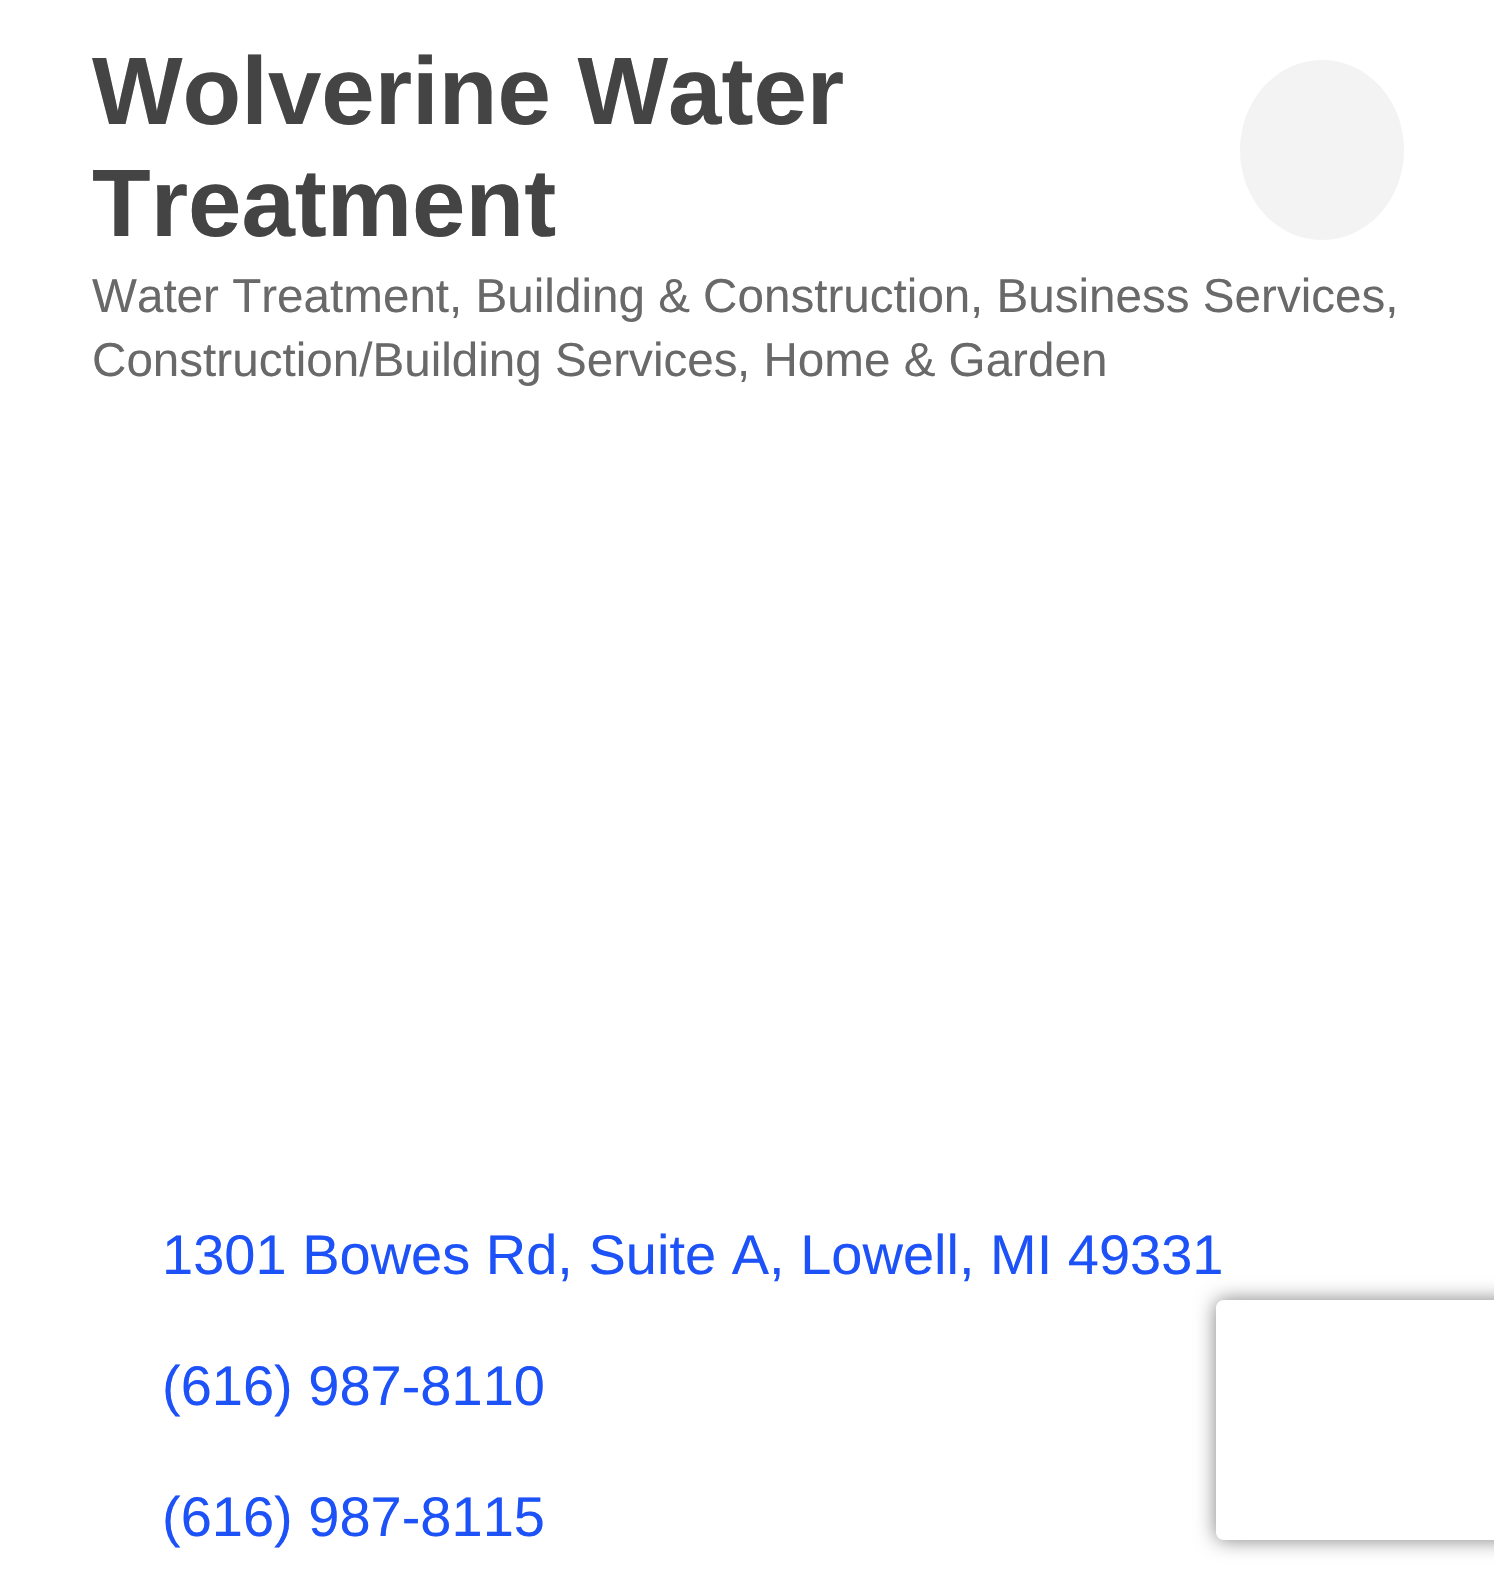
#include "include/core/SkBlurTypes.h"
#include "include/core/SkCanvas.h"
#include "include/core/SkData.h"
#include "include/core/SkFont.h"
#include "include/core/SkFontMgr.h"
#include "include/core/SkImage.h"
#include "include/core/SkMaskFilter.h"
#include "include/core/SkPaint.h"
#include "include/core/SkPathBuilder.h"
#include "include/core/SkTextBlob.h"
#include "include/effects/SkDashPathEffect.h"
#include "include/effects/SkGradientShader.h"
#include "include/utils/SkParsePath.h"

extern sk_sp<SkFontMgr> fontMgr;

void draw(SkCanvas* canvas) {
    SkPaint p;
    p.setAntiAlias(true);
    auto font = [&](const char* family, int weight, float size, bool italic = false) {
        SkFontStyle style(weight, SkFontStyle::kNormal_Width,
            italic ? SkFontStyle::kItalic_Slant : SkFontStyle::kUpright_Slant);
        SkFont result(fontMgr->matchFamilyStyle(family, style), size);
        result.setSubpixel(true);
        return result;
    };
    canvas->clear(0xFFFFFFFF);
    auto font1 = font("Liberation Sans", 700, 96);
    p.setColor(0xFF444444);
    canvas->drawString("Wolverine Water", 92, 124, font1, p);
    canvas->drawString("Treatment", 92, 236, font1, p);
    p.setColor(0xFFF3F3F3);
    canvas->drawOval(SkRect::MakeLTRB(1240, 60, 1404, 240), p);
    auto font2 = font("Liberation Sans", 400, 47.6f);
    p.setColor(0xFF696969);
    {
        const struct { const char* s; float x, y; } items[] = {
            {"Water Treatment, Building & Construction", 92, 312},
            {", Business Services,", 970, 312},
            {"Construction/Building Services", 92, 376},
            {", Home & Garden", 737, 376},
        };
        for (auto [s, x, y] : items) {
            canvas->drawString(s, x, y, font2, p);
        }
    }
    auto font3 = font("Liberation Sans", 400, 56);
    p.setColor(0xFF1D52F8);
    {
        const struct { const char* s; float x, y; } items[] = {
            {"1301 Bowes Rd, Suite A, Lowell, MI 49331", 162, 1274},
            {"(616) 987-8110", 162, 1405},
            {"(616) 987-8115", 162, 1536},
        };
        for (auto [s, x, y] : items) {
            canvas->drawString(s, x, y, font3, p);
        }
    }
    canvas->save();
    canvas->clipPath(SkPathBuilder(SkPathFillType::kEvenOdd).moveTo(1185, 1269).lineTo(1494, 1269).lineTo(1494, 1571).lineTo(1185, 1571).close().moveTo(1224, 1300).lineTo(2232, 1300).cubicTo(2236.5f, 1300, 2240, 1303.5f, 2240, 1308).lineTo(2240, 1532).cubicTo(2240, 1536.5f, 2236.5f, 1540, 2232, 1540).lineTo(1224, 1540).cubicTo(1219.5f, 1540, 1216, 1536.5f, 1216, 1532).lineTo(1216, 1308).cubicTo(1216, 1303.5f, 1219.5f, 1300, 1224, 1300).close().detach(), true);
    p.setColor(0xFF808080);
    p.setMaskFilter(SkMaskFilter::MakeBlur(kNormal_SkBlurStyle, 10));
    canvas->drawRoundRect(SkRect::MakeLTRB(1216, 1300, 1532, 1540), 8, 8, p);
    p.setMaskFilter(nullptr);
    canvas->restore();
}
